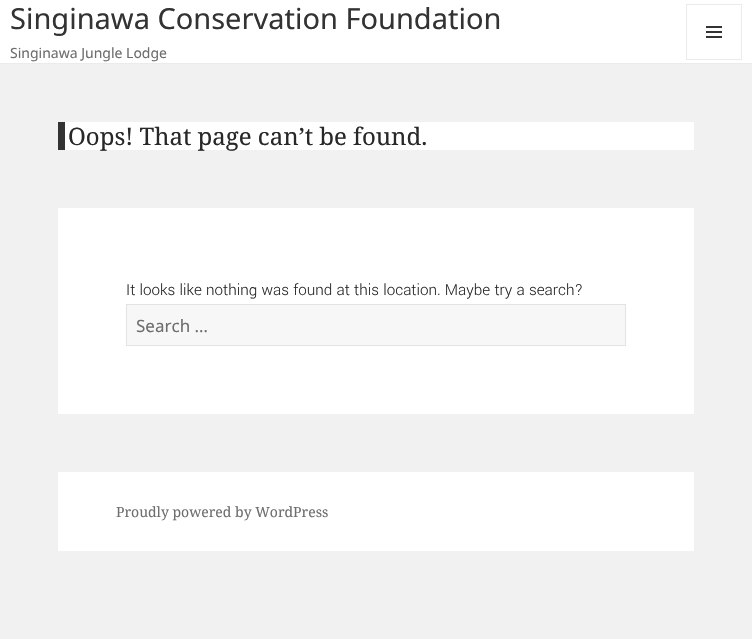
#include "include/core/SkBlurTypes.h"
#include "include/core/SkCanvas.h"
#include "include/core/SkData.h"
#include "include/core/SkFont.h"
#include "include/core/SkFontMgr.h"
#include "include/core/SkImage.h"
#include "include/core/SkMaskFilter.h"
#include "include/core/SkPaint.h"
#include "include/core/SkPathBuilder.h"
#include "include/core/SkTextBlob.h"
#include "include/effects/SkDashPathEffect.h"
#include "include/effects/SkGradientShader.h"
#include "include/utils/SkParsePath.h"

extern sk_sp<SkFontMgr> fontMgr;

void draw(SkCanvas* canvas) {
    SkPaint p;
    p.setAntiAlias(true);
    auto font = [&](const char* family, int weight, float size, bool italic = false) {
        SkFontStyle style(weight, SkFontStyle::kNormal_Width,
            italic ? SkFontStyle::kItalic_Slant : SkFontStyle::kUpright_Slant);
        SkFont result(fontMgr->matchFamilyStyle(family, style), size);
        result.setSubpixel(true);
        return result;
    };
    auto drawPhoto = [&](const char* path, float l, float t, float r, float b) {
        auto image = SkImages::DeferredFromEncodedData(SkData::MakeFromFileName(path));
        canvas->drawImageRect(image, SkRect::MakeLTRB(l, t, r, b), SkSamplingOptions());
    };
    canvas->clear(0xFFF1F1F1);
    p.setColor(0xFFFFFFFF);
    canvas->drawRect(SkRect::MakeLTRB(0, 0, 752, 63), p);
    p.setColor(0xFFEBEBEB);
    canvas->drawRect(SkRect::MakeLTRB(0, 63, 752, 64), p);
    auto font1 = font("Noto Sans", 400, 29);
    p.setColor(0xFF333333);
    canvas->drawString("Singinawa Conservation Foundation", 10, 29, font1, p);
    p.setStyle(SkPaint::kStroke_Style);
    p.setStrokeWidth(1);
    p.setColor(0xFFEBEBEB);
    canvas->drawRect(SkRect::MakeLTRB(686.5f, 4.5f, 741.5f, 59.5f), p);
    drawPhoto("media/1.png", 706, 26, 722, 38);
    auto font2 = font("Noto Sans", 400, 14);
    p.setStyle(SkPaint::kFill_Style);
    p.setColor(0xFF6E6E6E);
    canvas->drawString("Singinawa Jungle Lodge", 10, 58, font2, p);
    p.setColor(0xFFFFFFFF);
    canvas->drawRect(SkRect::MakeLTRB(65, 122, 694, 150), p);
    p.setColor(0xFF333333);
    canvas->drawRect(SkRect::MakeLTRB(58, 122, 65, 150), p);
    auto font3 = font("Noto Serif", 400, 24);
    p.setColor(0xFF282828);
    canvas->drawString("Oops! That page can’t be found.", 68, 145, font3, p);
    p.setColor(0xFFFFFFFF);
    canvas->drawRect(SkRect::MakeLTRB(58, 208, 694, 414), p);
    auto font4 = font("Yantramanav", 300, 17);
    p.setColor(0xFF282828);
    canvas->drawString("It looks like nothing was found at this location. Maybe try a search?", 126, 295, font4, p);
    p.setColor(0xFFF7F7F7);
    canvas->drawRect(SkRect::MakeLTRB(126.5f, 304.5f, 625.5f, 345.5f), p);
    p.setStyle(SkPaint::kStroke_Style);
    p.setColor(0xFFE3E3E3);
    canvas->drawRect(SkRect::MakeLTRB(126.5f, 304.5f, 625.5f, 345.5f), p);
    auto font5 = font("Noto Sans", 400, 17);
    p.setStyle(SkPaint::kFill_Style);
    p.setColor(0xFF6E6E6E);
    canvas->drawString("Search …", 136, 332, font5, p);
    p.setColor(0xFFFFFFFF);
    canvas->drawRect(SkRect::MakeLTRB(58, 472, 694, 551), p);
    auto font6 = font("Noto Serif", 400, 14);
    p.setColor(0xFF6E6E6E);
    canvas->drawString("Proudly powered by WordPress", 116, 517, font6, p);
}
